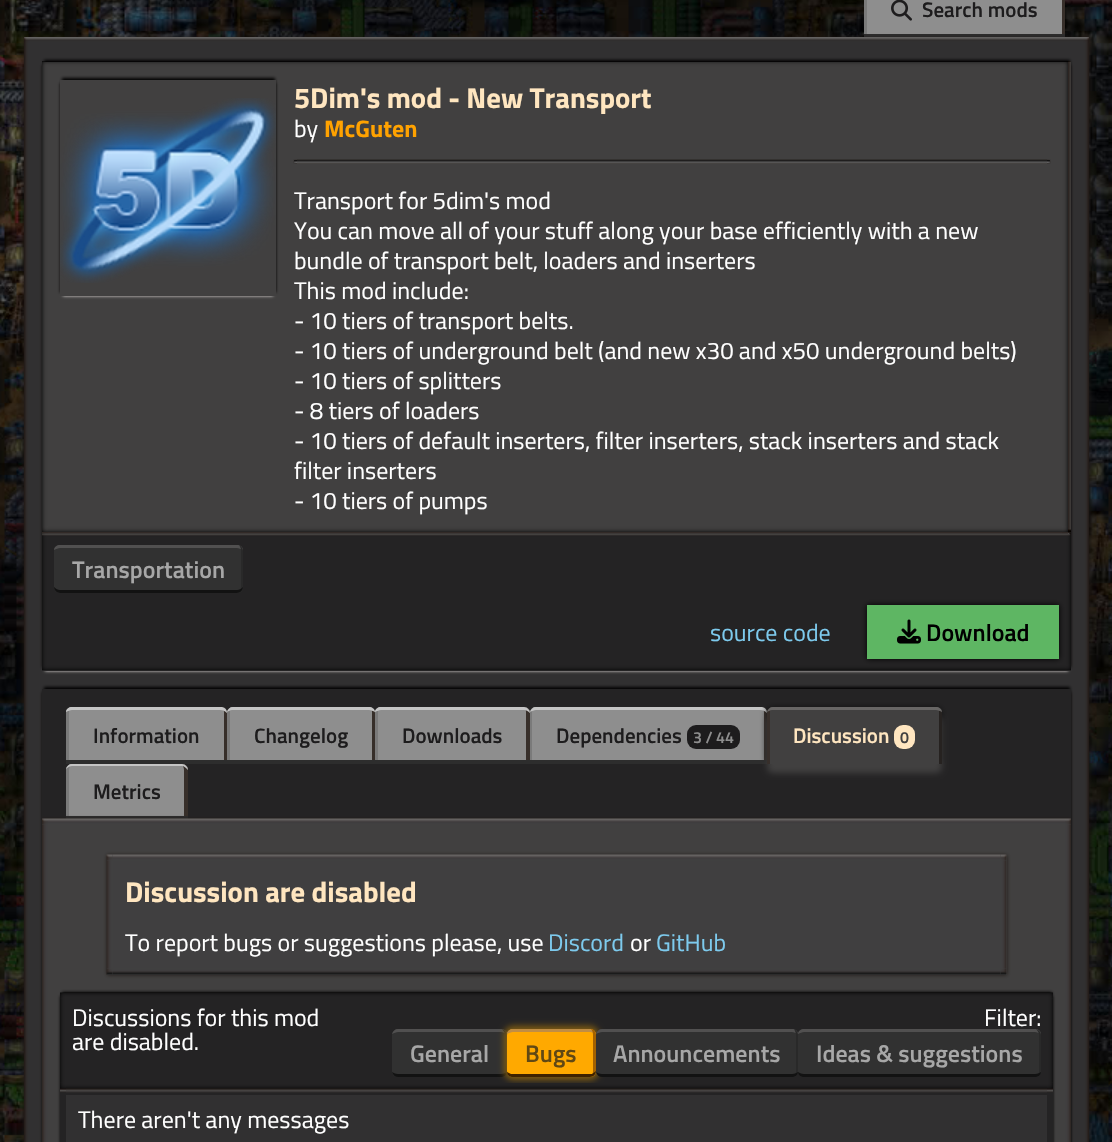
#include "include/core/SkBlurTypes.h"
#include "include/core/SkCanvas.h"
#include "include/core/SkData.h"
#include "include/core/SkFont.h"
#include "include/core/SkFontMgr.h"
#include "include/core/SkImage.h"
#include "include/core/SkMaskFilter.h"
#include "include/core/SkPaint.h"
#include "include/core/SkPathBuilder.h"
#include "include/core/SkTextBlob.h"
#include "include/effects/SkDashPathEffect.h"
#include "include/effects/SkGradientShader.h"
#include "include/utils/SkParsePath.h"

extern sk_sp<SkFontMgr> fontMgr;

void draw(SkCanvas* canvas) {
    SkPaint p;
    p.setAntiAlias(true);
    auto font = [&](const char* family, int weight, float size, bool italic = false) {
        SkFontStyle style(weight, SkFontStyle::kNormal_Width,
            italic ? SkFontStyle::kItalic_Slant : SkFontStyle::kUpright_Slant);
        SkFont result(fontMgr->matchFamilyStyle(family, style), size);
        result.setSubpixel(true);
        return result;
    };
    auto drawPhoto = [&](const char* path, float l, float t, float r, float b) {
        auto image = SkImages::DeferredFromEncodedData(SkData::MakeFromFileName(path));
        canvas->drawImageRect(image, SkRect::MakeLTRB(l, t, r, b), SkSamplingOptions());
    };
    canvas->clear(0xFFFFFFFF);
    drawPhoto("media/1.png", 0, 0, 1112, 1142);
    p.setColor(0xFF8E8E8E);
    canvas->drawRect(SkRect::MakeLTRB(867, 0, 1062, 34), p);
    p.setColor(0xFF372F2A);
    canvas->drawPath(SkPathBuilder().moveTo(1062, 38).lineTo(1065, 38).lineTo(1065, -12).cubicTo(1065, -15, 1063, -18, 1060, -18).cubicTo(1061, -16, 1062, -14, 1062, -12).close().detach(), p);
    p.setColor(0xFF7A7A7A);
    canvas->drawPath(SkPathBuilder().moveTo(869, -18).cubicTo(866, -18, 864, -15, 864, -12).lineTo(864, 38).lineTo(867, 38).lineTo(867, -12).cubicTo(867, -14, 868, -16, 869, -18).close().detach(), p);
    p.setColor(0xFF2D2D2D);
    canvas->drawRect(SkRect::MakeLTRB(864, 34, 1065, 37), p);
    drawPhoto("media/2.png", 891, 0, 912, 21);
    auto font1 = font("Titillium Web", 600, 21);
    p.setColor(0xFF1D1C1D);
    canvas->drawString("Search mods", 922, 17, font1, p);
    p.setColor(0xFF201815);
    p.setMaskFilter(SkMaskFilter::MakeBlur(kNormal_SkBlurStyle, 2));
    canvas->drawRect(SkRect::MakeLTRB(24, 38, 1089, 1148), p);
    p.setMaskFilter(nullptr);
    p.setColor(0xFF313031);
    canvas->drawRect(SkRect::MakeLTRB(30, 43, 1083, 1142), p);
    drawPhoto("media/3.png", 24, 37, 1089, 1142);
    p.setColor(0xFFEBE6E4);
    p.setMaskFilter(SkMaskFilter::MakeBlur(kNormal_SkBlurStyle, 1.5f));
    canvas->drawRect(SkRect::MakeLTRB(45, 68, 1068, 671), p);
    p.setMaskFilter(nullptr);
    p.setColor(0xFF0F0D0C);
    p.setMaskFilter(SkMaskFilter::MakeBlur(kNormal_SkBlurStyle, 1.5f));
    canvas->drawRect(SkRect::MakeLTRB(48, 65, 1071, 668), p);
    p.setMaskFilter(nullptr);
    p.setMaskFilter(SkMaskFilter::MakeBlur(kNormal_SkBlurStyle, 1.5f));
    canvas->drawRect(SkRect::MakeLTRB(42, 65, 1065, 668), p);
    p.setMaskFilter(nullptr);
    p.setColor(0xFF000000);
    p.setMaskFilter(SkMaskFilter::MakeBlur(kNormal_SkBlurStyle, 1.5f));
    canvas->drawRect(SkRect::MakeLTRB(44, 60, 1070, 666), p);
    p.setMaskFilter(nullptr);
    p.setColor(0xFF414040);
    canvas->drawRect(SkRect::MakeLTRB(1068, 62, 1071, 533), p);
    p.setColor(0xFF242324);
    canvas->drawRect(SkRect::MakeLTRB(42, 533, 1071, 671), p);
    drawPhoto("media/7.png", 42, 529, 1071, 670);
    p.setColor(0xFF414040);
    canvas->drawRect(SkRect::MakeLTRB(42, 62, 1068, 533), p);
    drawPhoto("media/4.png", 42, 61, 1071, 536);
    p.setColor(0xFFEBE6E4);
    p.setMaskFilter(SkMaskFilter::MakeBlur(kNormal_SkBlurStyle, 1.5f));
    canvas->drawRect(SkRect::MakeLTRB(63, 86, 273, 296), p);
    p.setMaskFilter(nullptr);
    p.setColor(0xFF0F0D0C);
    p.setMaskFilter(SkMaskFilter::MakeBlur(kNormal_SkBlurStyle, 1.5f));
    canvas->drawRect(SkRect::MakeLTRB(66, 83, 276, 293), p);
    p.setMaskFilter(nullptr);
    p.setMaskFilter(SkMaskFilter::MakeBlur(kNormal_SkBlurStyle, 1.5f));
    canvas->drawRect(SkRect::MakeLTRB(60, 83, 270, 293), p);
    p.setMaskFilter(nullptr);
    p.setColor(0xFF000000);
    p.setMaskFilter(SkMaskFilter::MakeBlur(kNormal_SkBlurStyle, 1.5f));
    canvas->drawRect(SkRect::MakeLTRB(62, 78, 275, 291), p);
    p.setMaskFilter(nullptr);
    p.setColor(0xFF414040);
    canvas->drawRect(SkRect::MakeLTRB(60, 80, 276, 296), p);
    drawPhoto("media/5.png", 60, 98, 276, 283);
    auto font2 = font("Titillium Web", 700, 28.75f);
    p.setColor(0xFFFFE6C0);
    canvas->drawString("5Dim's mod - New Transport", 294, 108, font2, p);
    auto font3 = font("Titillium Web", 400, 24);
    p.setColor(0xFFFFFFFF);
    canvas->drawString("by", 294, 137, font3, p);
    auto font4 = font("Titillium Web", 700, 24);
    p.setColor(0xFFFFA200);
    canvas->drawString("McGuten", 324, 137, font4, p);
    drawPhoto("media/6.png", 293, 159, 1051, 164);
    p.setColor(0xFFFFFFFF);
    {
        const struct { const char* s; float x, y; } items[] = {
            {"Transport for 5dim's mod", 294, 209},
            {"You can move all of your stuff along your base efficiently with a new", 294, 239},
            {"bundle of transport belt, loaders and inserters", 294, 269},
            {"This mod include:", 294, 299},
            {"- 10 tiers of transport belts.", 294, 329},
            {"- 10 tiers of underground belt (and new x30 and x50 underground belts)", 294, 359},
            {"- 10 tiers of splitters", 294, 389},
            {"- 8 tiers of loaders", 294, 419},
            {"- 10 tiers of default inserters, filter inserters, stack inserters and stack", 294, 449},
            {"filter inserters", 294, 479},
            {"- 10 tiers of pumps", 294, 509},
        };
        for (auto [s, x, y] : items) {
            canvas->drawString(s, x, y, font3, p);
        }
    }
    p.setColor(0xFF313131);
    canvas->drawRoundRect(SkRect::MakeLTRB(54, 545, 243, 593), 6, 6, p);
    p.setColor(0xFF515050);
    canvas->drawPath(SkPathBuilder().moveTo(60, 548).lineTo(237, 548).cubicTo(239, 548, 241, 549, 243, 550).cubicTo(243, 547, 240, 545, 237, 545).lineTo(60, 545).cubicTo(57, 545, 54, 547, 54, 550).cubicTo(56, 549, 58, 548, 60, 548).close().detach(), p);
    p.setColor(0xFF292929);
    canvas->drawPath(SkPathBuilder().moveTo(238, 593).cubicTo(241, 593, 243, 590, 243, 587).lineTo(243, 551).cubicTo(243, 548, 241, 546, 239, 545).cubicTo(240, 547, 241, 548, 241, 550).lineTo(241, 586).cubicTo(241, 589, 240, 591, 238, 593).close().detach(), p);
    p.setColor(0xFF121212);
    canvas->drawPath(SkPathBuilder().moveTo(54, 587).cubicTo(54, 590, 57, 593, 60, 593).lineTo(237, 593).cubicTo(240, 593, 243, 590, 243, 587).cubicTo(241, 589, 239, 590, 237, 590).lineTo(60, 590).cubicTo(58, 590, 56, 589, 54, 587).close().detach(), p);
    auto font5 = font("Titillium Web", 600, 24);
    p.setColor(0xFFA7A7A7);
    canvas->drawString("Transportation", 72, 578, font5, p);
    p.setColor(0xFF7DCAED);
    canvas->drawString("source code", 710, 641, font3, p);
    p.setColor(0xFF000000);
    p.setMaskFilter(SkMaskFilter::MakeBlur(kNormal_SkBlurStyle, 3));
    canvas->drawRect(SkRect::MakeLTRB(867, 605, 1059, 659), p);
    p.setMaskFilter(nullptr);
    p.setColor(0xFF5EB663);
    canvas->drawRect(SkRect::MakeLTRB(867, 605, 1059, 659), p);
    drawPhoto("media/8.png", 897, 619, 921, 644);
    p.setColor(0xFF000000);
    canvas->drawString("Download", 926, 641, font5, p);
    p.setColor(0xFF0F0D0C);
    p.setMaskFilter(SkMaskFilter::MakeBlur(kNormal_SkBlurStyle, 1.5f));
    canvas->drawRect(SkRect::MakeLTRB(48, 692, 1071, 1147), p);
    p.setMaskFilter(nullptr);
    p.setMaskFilter(SkMaskFilter::MakeBlur(kNormal_SkBlurStyle, 1.5f));
    canvas->drawRect(SkRect::MakeLTRB(42, 692, 1065, 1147), p);
    p.setMaskFilter(nullptr);
    p.setColor(0xFF000000);
    p.setMaskFilter(SkMaskFilter::MakeBlur(kNormal_SkBlurStyle, 1.5f));
    canvas->drawRect(SkRect::MakeLTRB(44, 687, 1070, 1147), p);
    p.setMaskFilter(nullptr);
    p.setColor(0xFF242324);
    canvas->drawRect(SkRect::MakeLTRB(42, 689, 1071, 819), p);
    p.setColor(0xFF8E8E8E);
    canvas->drawPath(SkPathBuilder().moveTo(72, 707).lineTo(221, 707).cubicTo(224.5f, 707, 227, 709.5f, 227, 713).lineTo(227, 764).lineTo(66, 764).lineTo(66, 713).cubicTo(66, 709.5f, 68.5f, 707, 72, 707).close().detach(), p);
    p.setColor(0xFF372F2A);
    canvas->drawPath(SkPathBuilder().moveTo(224, 764).lineTo(227, 764).lineTo(227, 713).cubicTo(227, 710, 225, 707, 221, 707).cubicTo(223, 708, 224, 710, 224, 712).close().detach(), p);
    p.setColor(0xFF7A7A7A);
    canvas->drawPath(SkPathBuilder().moveTo(71, 707).cubicTo(68, 708, 66, 710, 66, 713).lineTo(66, 764).lineTo(69, 764).lineTo(69, 712).cubicTo(69, 710, 70, 708, 71, 707).close().detach(), p);
    p.setColor(0xFF2D2D2D);
    canvas->drawRect(SkRect::MakeLTRB(66, 760, 227, 764), p);
    p.setColor(0xFFC5C5C5);
    canvas->drawPath(SkPathBuilder().moveTo(72, 710).lineTo(220, 710).cubicTo(223, 710, 225, 711, 227, 713).cubicTo(227, 709, 224, 707, 221, 707).lineTo(72, 707).cubicTo(69, 707, 66, 709, 66, 712).cubicTo(68, 711, 70, 710, 72, 710).close().detach(), p);
    p.setColor(0xFF1D1C1D);
    canvas->drawString("Information", 93, 743, font1, p);
    p.setColor(0xFF8E8E8E);
    canvas->drawPath(SkPathBuilder().moveTo(233, 707).lineTo(369, 707).cubicTo(372.5f, 707, 375, 709.5f, 375, 713).lineTo(375, 764).lineTo(227, 764).lineTo(227, 713).cubicTo(227, 709.5f, 229.5f, 707, 233, 707).close().detach(), p);
    p.setColor(0xFF372F2A);
    canvas->drawPath(SkPathBuilder().moveTo(372, 764).lineTo(375, 764).lineTo(375, 713).cubicTo(375, 710, 373, 708, 370, 707).cubicTo(371, 708, 372, 710, 372, 712).close().detach(), p);
    p.setColor(0xFF7A7A7A);
    canvas->drawPath(SkPathBuilder().moveTo(232, 707).cubicTo(229, 708, 227, 710, 227, 713).lineTo(227, 764).lineTo(230, 764).lineTo(230, 712).cubicTo(230, 710, 231, 709, 232, 707).close().detach(), p);
    p.setColor(0xFF2D2D2D);
    canvas->drawRect(SkRect::MakeLTRB(227, 760, 375, 764), p);
    p.setColor(0xFFC5C5C5);
    canvas->drawPath(SkPathBuilder().moveTo(232, 710).lineTo(369, 710).cubicTo(371, 710, 373, 711, 375, 712).cubicTo(375, 709, 372, 707, 369, 707).lineTo(233, 707).cubicTo(230, 707, 228, 709, 227, 712).cubicTo(229, 711, 230, 710, 232, 710).close().detach(), p);
    p.setColor(0xFF1D1C1D);
    canvas->drawString("Changelog", 254, 743, font1, p);
    p.setColor(0xFF8E8E8E);
    canvas->drawPath(SkPathBuilder().moveTo(381, 707).lineTo(524, 707).cubicTo(527.5f, 707, 530, 709.5f, 530, 713).lineTo(530, 764).lineTo(375, 764).lineTo(375, 713).cubicTo(375, 709.5f, 377.5f, 707, 381, 707).close().detach(), p);
    p.setColor(0xFF372F2A);
    canvas->drawPath(SkPathBuilder().moveTo(526, 764).lineTo(530, 764).lineTo(530, 713).cubicTo(530, 710, 527, 707, 524, 707).cubicTo(525, 708, 526, 710, 526, 712).close().detach(), p);
    p.setColor(0xFF7A7A7A);
    canvas->drawPath(SkPathBuilder().moveTo(380, 707).cubicTo(377, 708, 375, 710, 375, 713).lineTo(375, 764).lineTo(378, 764).lineTo(378, 712).cubicTo(378, 710, 379, 708, 380, 707).close().detach(), p);
    p.setColor(0xFF2D2D2D);
    canvas->drawRect(SkRect::MakeLTRB(375, 760, 530, 764), p);
    p.setColor(0xFFC5C5C5);
    canvas->drawPath(SkPathBuilder().moveTo(381, 710).lineTo(524, 710).cubicTo(526, 710, 528, 711, 530, 713).cubicTo(530, 710, 527, 707, 524, 707).lineTo(381, 707).cubicTo(378, 707, 375, 709, 375, 712).cubicTo(377, 711, 379, 710, 381, 710).close().detach(), p);
    p.setColor(0xFF1D1C1D);
    canvas->drawString("Downloads", 402, 743, font1, p);
    p.setColor(0xFF8E8E8E);
    canvas->drawPath(SkPathBuilder().moveTo(536, 707).lineTo(761, 707).cubicTo(764.5f, 707, 767, 709.5f, 767, 713).lineTo(767, 764).lineTo(530, 764).lineTo(530, 713).cubicTo(530, 709.5f, 532.5f, 707, 536, 707).close().detach(), p);
    p.setColor(0xFF372F2A);
    canvas->drawPath(SkPathBuilder().moveTo(764, 764).lineTo(767, 764).lineTo(767, 713).cubicTo(767, 710, 765, 707, 761, 707).cubicTo(763, 708, 764, 710, 764, 712).close().detach(), p);
    p.setColor(0xFF7A7A7A);
    canvas->drawPath(SkPathBuilder().moveTo(534, 707).cubicTo(532, 708, 530, 710, 530, 713).lineTo(530, 764).lineTo(532, 764).lineTo(532, 712).cubicTo(532, 710, 533, 709, 534, 707).close().detach(), p);
    p.setColor(0xFF2D2D2D);
    canvas->drawRect(SkRect::MakeLTRB(530, 760, 767, 764), p);
    p.setColor(0xFFC5C5C5);
    canvas->drawPath(SkPathBuilder().moveTo(536, 710).lineTo(760, 710).cubicTo(763, 710, 765, 711, 767, 713).cubicTo(767, 709, 764, 707, 761, 707).lineTo(536, 707).cubicTo(533, 707, 531, 709, 530, 712).cubicTo(532, 711, 534, 710, 536, 710).close().detach(), p);
    p.setColor(0xFF1D1C1D);
    canvas->drawString("Dependencies", 556, 743, font1, p);
    canvas->drawRoundRect(SkRect::MakeLTRB(687, 725, 740, 749), 9, 9, p);
    auto font6 = font("Titillium Web", 600, 16);
    p.setColor(0xFF8E8E8E);
    canvas->drawString("3 / 44", 693, 743, font6, p);
    p.setColor(0xFF101010);
    p.setMaskFilter(SkMaskFilter::MakeBlur(kNormal_SkBlurStyle, 3));
    canvas->drawRoundRect(SkRect::MakeLTRB(767, 707, 942, 764), 6, 6, p);
    p.setMaskFilter(nullptr);
    p.setColor(0xFF414040);
    p.setMaskFilter(SkMaskFilter::MakeBlur(kNormal_SkBlurStyle, 3));
    canvas->drawRoundRect(SkRect::MakeLTRB(767, 716, 942, 773), 6, 6, p);
    p.setMaskFilter(nullptr);
    canvas->drawPath(SkPathBuilder().moveTo(773, 707).lineTo(936, 707).cubicTo(939.5f, 707, 942, 709.5f, 942, 713).lineTo(942, 764).lineTo(767, 764).lineTo(767, 713).cubicTo(767, 709.5f, 769.5f, 707, 773, 707).close().detach(), p);
    p.setColor(0xFF262220);
    canvas->drawPath(SkPathBuilder().moveTo(939, 764).lineTo(942, 764).lineTo(942, 713).cubicTo(942, 710, 940, 708, 937, 707).cubicTo(938, 708, 939, 710, 939, 712).close().detach(), p);
    p.setColor(0xFF372F2B);
    canvas->drawPath(SkPathBuilder().moveTo(772, 707).cubicTo(769, 708, 767, 710, 767, 713).lineTo(767, 764).lineTo(770, 764).lineTo(770, 712).cubicTo(770, 710, 771, 709, 772, 707).close().detach(), p);
    p.setColor(0xFF686665);
    canvas->drawPath(SkPathBuilder().moveTo(772, 710).lineTo(936, 710).cubicTo(938, 710, 940, 711, 942, 712).cubicTo(942, 709, 939, 707, 936, 707).lineTo(773, 707).cubicTo(770, 707, 768, 709, 767, 712).cubicTo(769, 711, 770, 710, 772, 710).close().detach(), p);
    p.setColor(0xFFFFE6C0);
    canvas->drawString("Discussion", 793, 743, font1, p);
    canvas->drawRoundRect(SkRect::MakeLTRB(894, 725, 915, 749), 9, 9, p);
    p.setColor(0xFF414040);
    canvas->drawString("0", 900, 743, font6, p);
    p.setColor(0xFF8E8E8E);
    canvas->drawPath(SkPathBuilder().moveTo(72, 764).lineTo(182, 764).cubicTo(185.5f, 764, 188, 766.5f, 188, 770).lineTo(188, 819).lineTo(66, 819).lineTo(66, 770).cubicTo(66, 766.5f, 68.5f, 764, 72, 764).close().detach(), p);
    p.setColor(0xFF372F2A);
    canvas->drawPath(SkPathBuilder().moveTo(184, 819).lineTo(188, 819).lineTo(188, 770).cubicTo(188, 767, 185, 764, 182, 764).cubicTo(183, 766, 184, 768, 184, 770).close().detach(), p);
    p.setColor(0xFF7A7A7A);
    canvas->drawPath(SkPathBuilder().moveTo(71, 764).cubicTo(68, 765, 66, 767, 66, 770).lineTo(66, 819).lineTo(69, 819).lineTo(69, 770).cubicTo(69, 768, 70, 766, 71, 764).close().detach(), p);
    p.setColor(0xFF2D2D2D);
    canvas->drawRect(SkRect::MakeLTRB(66, 816, 188, 819), p);
    p.setColor(0xFFC5C5C5);
    canvas->drawPath(SkPathBuilder().moveTo(72, 766).lineTo(182, 766).cubicTo(184, 766, 186, 768, 188, 770).cubicTo(188, 767, 185, 764, 182, 764).lineTo(72, 764).cubicTo(69, 764, 67, 766, 66, 769).cubicTo(68, 767, 70, 766, 72, 766).close().detach(), p);
    p.setColor(0xFF1D1C1D);
    canvas->drawString("Metrics", 93, 799, font1, p);
    canvas->save();
    canvas->clipRect(SkRect::MakeLTRB(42, 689, 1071, 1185));
    p.setColor(0xFF201815);
    p.setMaskFilter(SkMaskFilter::MakeBlur(kNormal_SkBlurStyle, 2));
    canvas->drawRect(SkRect::MakeLTRB(42, 819, 1071, 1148), p);
    p.setMaskFilter(nullptr);
    canvas->restore();
    p.setColor(0xFF414040);
    canvas->drawRect(SkRect::MakeLTRB(42, 824, 1071, 1142), p);
    drawPhoto("media/9.png", 42, 818, 1071, 1142);
    p.setColor(0xFF201815);
    p.setMaskFilter(SkMaskFilter::MakeBlur(kNormal_SkBlurStyle, 2));
    canvas->drawRect(SkRect::MakeLTRB(107, 855, 1007, 975), p);
    p.setMaskFilter(nullptr);
    p.setColor(0xFF403F40);
    canvas->drawRect(SkRect::MakeLTRB(107, 855, 1007, 975), p);
    drawPhoto("media/10.png", 106, 854, 1007, 975);
    p.setColor(0xFFFFE6C0);
    canvas->drawString("Discussion are disabled", 125, 902, font2, p);
    p.setColor(0xFFFFFFFF);
    canvas->drawString("To report bugs or suggestions please, use", 125, 951, font3, p);
    p.setColor(0xFF7DCAED);
    canvas->drawString("Discord", 548, 951, font3, p);
    p.setColor(0xFFFFFFFF);
    canvas->drawString("or", 630, 951, font3, p);
    p.setColor(0xFF7DCAED);
    canvas->drawString("GitHub", 656, 951, font3, p);
    p.setColor(0xFF0F0D0C);
    p.setMaskFilter(SkMaskFilter::MakeBlur(kNormal_SkBlurStyle, 1.5f));
    canvas->drawRect(SkRect::MakeLTRB(66, 996, 1053, 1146), p);
    p.setMaskFilter(nullptr);
    p.setMaskFilter(SkMaskFilter::MakeBlur(kNormal_SkBlurStyle, 1.5f));
    canvas->drawRect(SkRect::MakeLTRB(60, 996, 1047, 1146), p);
    p.setMaskFilter(nullptr);
    p.setColor(0xFF000000);
    p.setMaskFilter(SkMaskFilter::MakeBlur(kNormal_SkBlurStyle, 1.5f));
    canvas->drawRect(SkRect::MakeLTRB(62, 992, 1052, 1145), p);
    p.setMaskFilter(nullptr);
    p.setColor(0xFF242324);
    canvas->drawRect(SkRect::MakeLTRB(60, 993, 1053, 1142), p);
    drawPhoto("media/11.png", 60, 992, 1053, 1093);
    p.setColor(0xFFFFFFFF);
    {
        const struct { const char* s; float x, y; } items[] = {
            {"Discussions for this mod", 72, 1026},
            {"are disabled.", 72, 1050},
            {"Filter:", 984, 1026},
        };
        for (auto [s, x, y] : items) {
            canvas->drawString(s, x, y, font3, p);
        }
    }
    p.setColor(0xFF313131);
    canvas->drawRoundRect(SkRect::MakeLTRB(392, 1029, 507, 1077), 6, 6, p);
    p.setColor(0xFF515050);
    canvas->drawPath(SkPathBuilder().moveTo(398, 1032).lineTo(501, 1032).cubicTo(503, 1032, 505, 1033, 507, 1034).cubicTo(507, 1031, 504, 1029, 501, 1029).lineTo(398, 1029).cubicTo(395, 1029, 393, 1031, 392, 1034).cubicTo(394, 1033, 396, 1032, 398, 1032).close().detach(), p);
    p.setColor(0xFF292929);
    canvas->drawPath(SkPathBuilder().moveTo(502, 1077).cubicTo(505, 1076, 507, 1074, 507, 1071).lineTo(507, 1035).cubicTo(507, 1032, 505, 1030, 502, 1029).cubicTo(504, 1031, 505, 1033, 505, 1035).lineTo(505, 1071).cubicTo(505, 1073, 504, 1075, 502, 1077).close().detach(), p);
    p.setColor(0xFF121212);
    canvas->drawPath(SkPathBuilder().moveTo(392, 1072).cubicTo(393, 1075, 395, 1077, 398, 1077).lineTo(501, 1077).cubicTo(504, 1077, 507, 1075, 507, 1072).cubicTo(505, 1073, 503, 1074, 501, 1074).lineTo(398, 1074).cubicTo(396, 1074, 394, 1073, 392, 1072).close().detach(), p);
    p.setColor(0xFFA7A7A7);
    canvas->drawString("General", 410, 1062, font5, p);
    canvas->save();
    canvas->clipRect(SkRect::MakeLTRB(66, 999, 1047, 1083));
    p.setColor(0xFF805C10);
    p.setMaskFilter(SkMaskFilter::MakeBlur(kNormal_SkBlurStyle, 3));
    canvas->drawRoundRect(SkRect::MakeLTRB(504, 1026, 599, 1080), 9, 9, p);
    p.setMaskFilter(nullptr);
    canvas->restore();
    p.setColor(0xFFFFA900);
    canvas->drawRoundRect(SkRect::MakeLTRB(507, 1029, 596, 1077), 6, 6, p);
    p.setColor(0xFFC08D44);
    canvas->drawPath(SkPathBuilder().moveTo(513, 1032).lineTo(590, 1032).cubicTo(592, 1032, 594, 1033, 596, 1035).cubicTo(596, 1032, 593, 1029, 590, 1029).lineTo(513, 1029).cubicTo(510, 1029, 507, 1031, 507, 1034).cubicTo(509, 1033, 511, 1032, 513, 1032).close().detach(), p);
    p.setColor(0xFFA46200);
    canvas->drawPath(SkPathBuilder().moveTo(591, 1077).cubicTo(594, 1077, 596, 1074, 596, 1071).lineTo(596, 1035).cubicTo(596, 1032, 594, 1029, 591, 1029).cubicTo(592, 1030, 593, 1032, 593, 1035).lineTo(593, 1071).cubicTo(593, 1074, 592, 1076, 591, 1077).close().detach(), p);
    p.setColor(0xFF3E2200);
    canvas->drawPath(SkPathBuilder().moveTo(507, 1072).cubicTo(507, 1075, 510, 1077, 513, 1077).lineTo(590, 1077).cubicTo(593, 1077, 596, 1074, 596, 1071).cubicTo(595, 1072, 593, 1073, 592, 1074).lineTo(511, 1074).close().detach(), p);
    p.setColor(0xFF604814);
    canvas->drawString("Bugs", 525, 1062, font5, p);
    p.setColor(0xFF313131);
    canvas->drawRoundRect(SkRect::MakeLTRB(596, 1029, 798, 1077), 6, 6, p);
    p.setColor(0xFF515050);
    canvas->drawPath(SkPathBuilder().moveTo(602, 1032).lineTo(792, 1032).cubicTo(794, 1032, 796, 1033, 798, 1034).cubicTo(798, 1031, 795, 1029, 792, 1029).lineTo(602, 1029).cubicTo(599, 1029, 597, 1031, 596, 1034).cubicTo(598, 1033, 600, 1032, 602, 1032).close().detach(), p);
    p.setColor(0xFF292929);
    canvas->drawPath(SkPathBuilder().moveTo(794, 1077).cubicTo(796, 1076, 798, 1074, 798, 1071).lineTo(798, 1035).cubicTo(798, 1032, 796, 1030, 794, 1029).cubicTo(795, 1031, 796, 1033, 796, 1035).lineTo(796, 1071).cubicTo(796, 1073, 795, 1075, 794, 1077).close().detach(), p);
    p.setColor(0xFF121212);
    canvas->drawPath(SkPathBuilder().moveTo(596, 1072).cubicTo(597, 1075, 599, 1077, 602, 1077).lineTo(792, 1077).cubicTo(795, 1077, 798, 1075, 798, 1072).cubicTo(796, 1073, 794, 1074, 792, 1074).lineTo(602, 1074).cubicTo(600, 1074, 598, 1073, 596, 1072).close().detach(), p);
    p.setColor(0xFFA7A7A7);
    canvas->drawString("Announcements", 613, 1062, font5, p);
    p.setColor(0xFF313131);
    canvas->drawRoundRect(SkRect::MakeLTRB(798, 1029, 1041, 1077), 6, 6, p);
    p.setColor(0xFF515050);
    canvas->drawPath(SkPathBuilder().moveTo(804, 1032).lineTo(1035, 1032).cubicTo(1037, 1032, 1039, 1033, 1041, 1034).cubicTo(1041, 1031, 1038, 1029, 1035, 1029).lineTo(804, 1029).cubicTo(801, 1029, 798, 1031, 798, 1034).cubicTo(800, 1033, 802, 1032, 804, 1032).close().detach(), p);
    p.setColor(0xFF292929);
    canvas->drawPath(SkPathBuilder().moveTo(1036, 1077).cubicTo(1039, 1076, 1041, 1074, 1041, 1071).lineTo(1041, 1035).cubicTo(1041, 1032, 1039, 1030, 1036, 1029).cubicTo(1038, 1031, 1039, 1033, 1039, 1035).lineTo(1039, 1071).cubicTo(1039, 1073, 1038, 1075, 1036, 1077).close().detach(), p);
    p.setColor(0xFF121212);
    canvas->drawPath(SkPathBuilder().moveTo(798, 1072).cubicTo(798, 1075, 801, 1077, 804, 1077).lineTo(1035, 1077).cubicTo(1038, 1077, 1041, 1075, 1041, 1072).cubicTo(1039, 1073, 1037, 1074, 1035, 1074).lineTo(804, 1074).cubicTo(802, 1074, 800, 1073, 798, 1072).close().detach(), p);
    p.setColor(0xFFA7A7A7);
    canvas->drawString("Ideas & suggestions", 816, 1062, font5, p);
    p.setColor(0xFF313031);
    canvas->drawRect(SkRect::MakeLTRB(66, 1095, 1047, 1142), p);
    p.setColor(0xFFFFFFFF);
    canvas->drawString("There aren't any messages", 78, 1128, font3, p);
}
